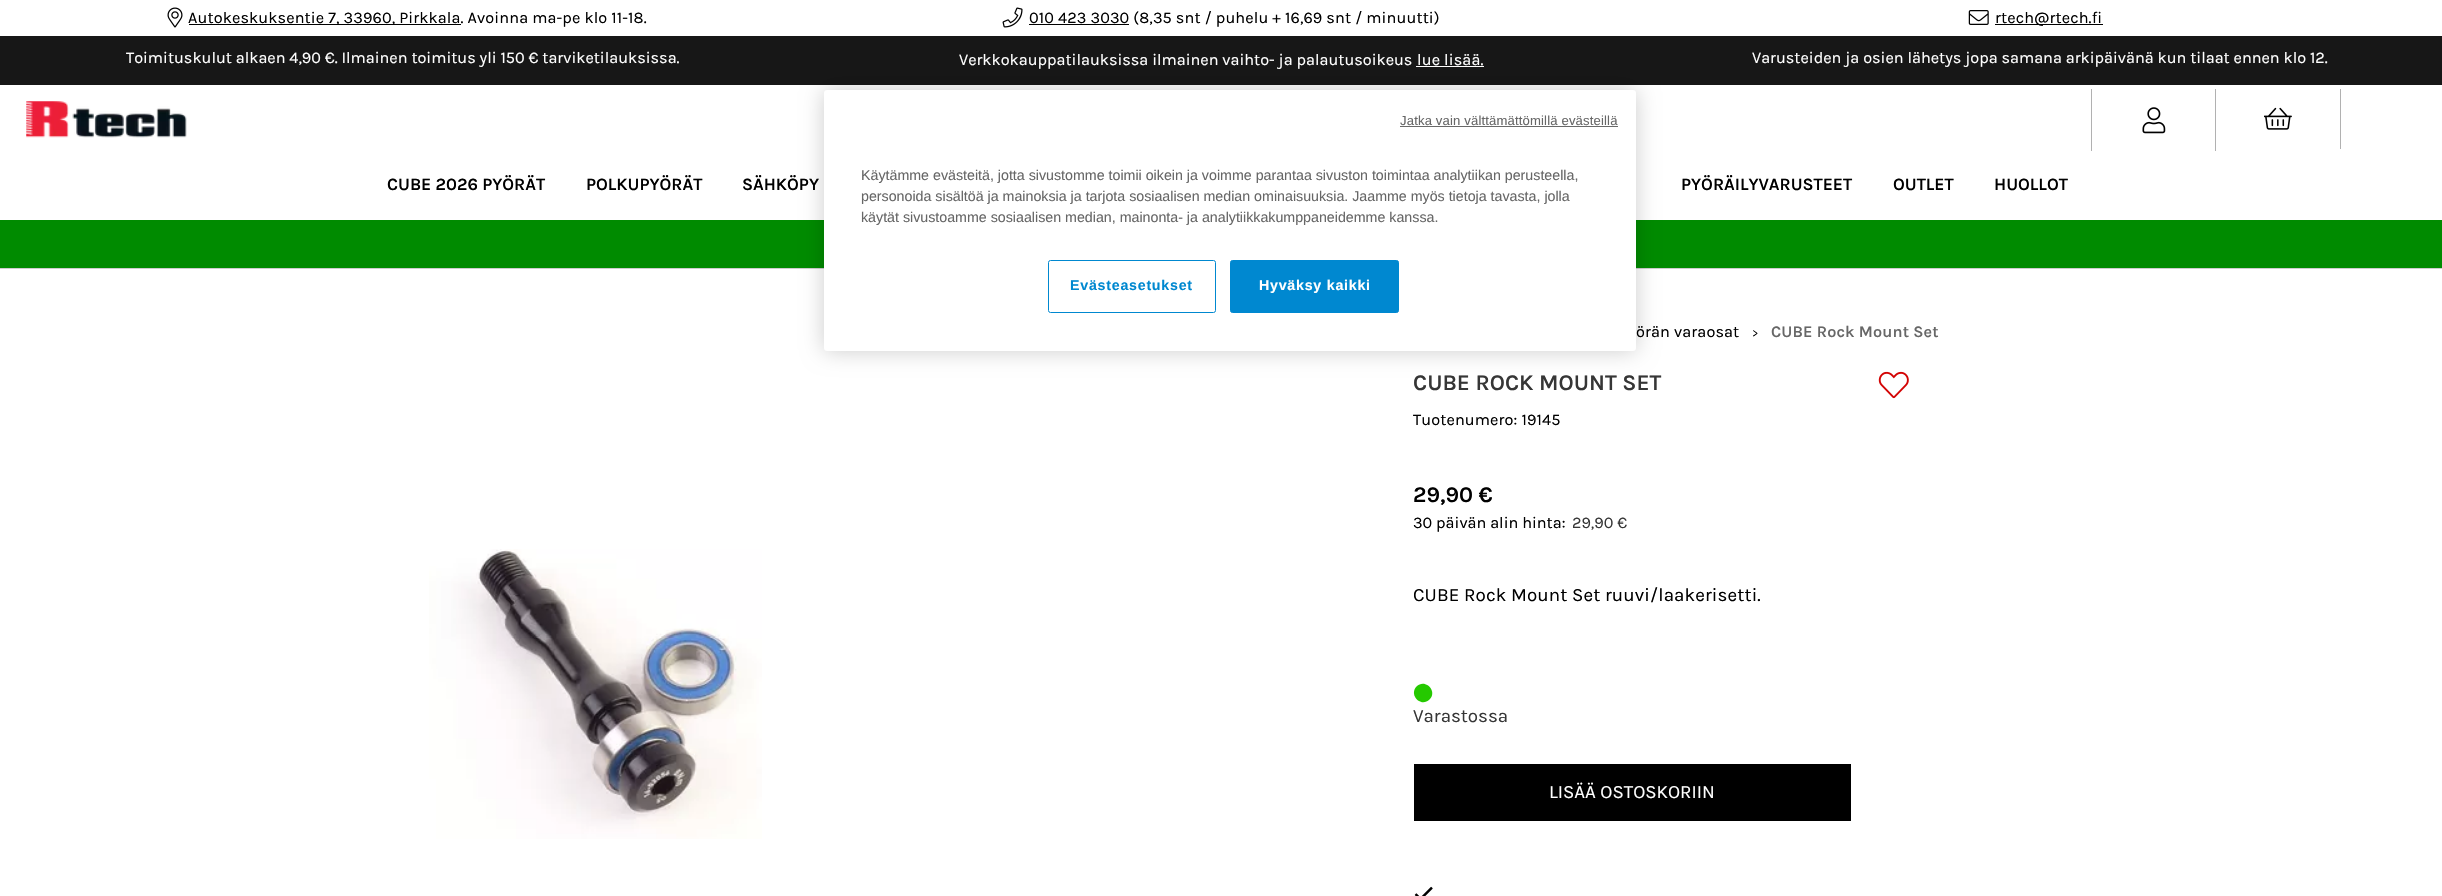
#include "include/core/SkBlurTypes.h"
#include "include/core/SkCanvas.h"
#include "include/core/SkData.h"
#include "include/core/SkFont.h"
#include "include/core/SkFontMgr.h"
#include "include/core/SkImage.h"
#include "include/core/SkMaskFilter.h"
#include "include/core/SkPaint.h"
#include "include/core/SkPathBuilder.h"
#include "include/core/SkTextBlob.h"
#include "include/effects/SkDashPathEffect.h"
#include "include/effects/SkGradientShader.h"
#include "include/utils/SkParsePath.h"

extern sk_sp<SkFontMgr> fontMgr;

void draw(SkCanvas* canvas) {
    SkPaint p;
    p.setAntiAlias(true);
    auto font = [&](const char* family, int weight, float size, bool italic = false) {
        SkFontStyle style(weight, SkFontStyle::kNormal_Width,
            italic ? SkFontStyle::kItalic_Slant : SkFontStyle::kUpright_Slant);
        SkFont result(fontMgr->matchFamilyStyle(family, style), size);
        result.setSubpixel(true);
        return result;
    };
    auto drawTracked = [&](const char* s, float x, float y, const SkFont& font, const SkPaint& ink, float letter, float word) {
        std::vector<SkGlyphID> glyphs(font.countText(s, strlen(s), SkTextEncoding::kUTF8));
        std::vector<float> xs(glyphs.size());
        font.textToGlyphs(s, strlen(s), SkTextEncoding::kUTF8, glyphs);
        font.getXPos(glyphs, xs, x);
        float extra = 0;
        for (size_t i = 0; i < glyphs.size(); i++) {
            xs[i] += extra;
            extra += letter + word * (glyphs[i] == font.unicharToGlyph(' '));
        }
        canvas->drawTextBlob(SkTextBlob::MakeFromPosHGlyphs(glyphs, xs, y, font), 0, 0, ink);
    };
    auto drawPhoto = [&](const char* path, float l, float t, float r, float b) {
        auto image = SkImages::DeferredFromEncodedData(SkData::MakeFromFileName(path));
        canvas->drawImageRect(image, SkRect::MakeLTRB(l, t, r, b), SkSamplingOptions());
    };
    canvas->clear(0xFFFFFFFF);
    p.setColor(0xFFCECECE);
    canvas->drawRect(SkRect::MakeLTRB(0, 268, 2442, 269), p);
    drawPhoto("media/1.png", 167, 7, 183, 28);
    p.setColor(0xFF000000);
    canvas->drawRect(SkRect::MakeLTRB(189, 24, 461, 25), p);
    auto font1 = font("Karla", 400, 16.25f);
    drawTracked("Autokeskuksentie 7, 33960, Pirkkala. Avoinna ma-pe klo 11-18.", 188, 23, font1, p, 0.12f, 0);
    drawPhoto("media/2.png", 1002, 7, 1023, 28);
    canvas->drawRect(SkRect::MakeLTRB(1029, 24, 1129, 25), p);
    drawTracked("010 423 3030 (8,35 snt / puhelu + 16,69 snt / minuutti)", 1029, 23, font1, p, 0.12f, 0);
    drawPhoto("media/3.png", 1968, 10, 1989, 25);
    canvas->drawRect(SkRect::MakeLTRB(1995, 24, 2103, 25), p);
    drawTracked("rtech@rtech.fi", 1995, 23, font1, p, 0.12f, 0);
    p.setColor(0xFF171717);
    canvas->drawRect(SkRect::MakeLTRB(0, 36, 2442, 85), p);
    p.setColor(0xFFFFFFFF);
    canvas->drawString("Toimituskulut alkaen 4,90 €. Ilmainen toimitus yli 150 € tarviketilauksissa.", 126, 63, font1, p);
    canvas->drawString("Verkkokauppatilauksissa ilmainen vaihto- ja palautusoikeus", 959, 65, font1, p);
    drawTracked("lue lisää.", 1417, 65, font1, p, 0.12f, 0);
    p.setColor(0xFFFFFEFE);
    canvas->drawRect(SkRect::MakeLTRB(1416, 66, 1484, 67), p);
    p.setColor(0xFFFFFFFF);
    canvas->drawString("Varusteiden ja osien lähetys jopa samana arkipäivänä kun tilaat ennen klo 12.", 1752, 63, font1, p);
    drawPhoto("media/4.png", 26, 101, 187, 138);
    p.setColor(0xFFB1B1B1);
    canvas->drawRect(SkRect::MakeLTRB(2215, 89, 2216, 151), p);
    canvas->drawRect(SkRect::MakeLTRB(2091, 89, 2092, 151), p);
    drawPhoto("media/5.png", 2142, 107, 2166, 134);
    canvas->drawRect(SkRect::MakeLTRB(2340, 89, 2341, 149), p);
    drawPhoto("media/6.png", 2264, 107, 2292, 130);
    auto font2 = font("Karla", 600, 17.5f);
    p.setColor(0xFF000000);
    {
        const struct { const char* s; float x, y; } items[] = {
            {"CUBE 2026 PYÖRÄT", 387, 190},
            {"POLKUPYÖRÄT", 586, 190},
            {"SÄHKÖPY", 742, 190},
            {"PYÖRÄILYVARUSTEET", 1681, 190},
            {"OUTLET", 1893, 190},
            {"HUOLLOT", 1994, 190},
        };
        for (auto [s, x, y] : items) {
            canvas->drawString(s, x, y, font2, p);
        }
    }
    p.setColor(0xFF008B00);
    canvas->drawRect(SkRect::MakeLTRB(0, 220, 2442, 268), p);
    drawPhoto("media/7.png", 429, 549, 762, 839);
    p.setColor(0xFF000000);
    drawTracked("örän varaosat", 1636, 337, font1, p, 0.12f, 0);
    auto font3 = font("Karla", 400, 12);
    drawTracked(">", 1752, 337, font3, p, 0.12f, 0);
    auto font4 = font("Karla", 600, 16.25f);
    p.setColor(0xFF676767);
    drawTracked("CUBE Rock Mount Set", 1771, 337, font4, p, 0.12f, 0);
    auto font5 = font("Karla", 600, 22.5f);
    p.setColor(0xFF363636);
    canvas->drawString("CUBE ROCK MOUNT SET", 1413, 390, font5, p);
    drawPhoto("media/8.png", 1878, 371, 1909, 399);
    p.setColor(0xFF000000);
    drawTracked("Tuotenumero: 19145", 1413, 425, font1, p, 0.12f, 0);
    canvas->drawString("29,90 €", 1413, 502, font5, p);
    canvas->drawString("30 päivän alin hinta:", 1413, 528, font1, p);
    p.setColor(0xFF363636);
    canvas->drawString("29,90 €", 1572, 528, font1, p);
    auto font6 = font("Karla", 400, 18.75f);
    p.setColor(0xFF000000);
    drawTracked("CUBE Rock Mount Set ruuvi/laakerisetti.", 1413, 601, font6, p, 0.12f, 0);
    p.setColor(0xFF25C900);
    canvas->drawPath(SkPathBuilder().moveTo(1416.5f, 686.5f).cubicTo(1425, 678, 1438, 691, 1429.5f, 699.5f).cubicTo(1421, 708, 1408.5f, 695, 1416.5f, 686.5f).close().detach(), p);
    p.setColor(0xFF363636);
    canvas->drawString("Varastossa", 1413, 722, font6, p);
    p.setColor(0xFF000000);
    canvas->drawRect(SkRect::MakeLTRB(1414, 764, 1851, 821), p);
    p.setColor(0xFFFFFFFF);
    canvas->drawString("LISÄÄ OSTOSKORIIN", 1549, 798, font6, p);
    drawPhoto("media/9.png", 1414, 886, 1433, 896);
    p.setColor(0x33000000);
    p.setMaskFilter(SkMaskFilter::MakeBlur(kNormal_SkBlurStyle, 11));
    canvas->drawRoundRect(SkRect::MakeLTRB(824, 90, 1636, 351), 3, 3, p);
    p.setMaskFilter(nullptr);
    p.setColor(0xFFFFFFFF);
    canvas->drawRoundRect(SkRect::MakeLTRB(824, 90, 1636, 351), 3, 3, p);
    auto font7 = font("Liberation Sans", 400, 13.1f);
    p.setColor(0xFF676767);
    drawTracked("Jatka vain välttämättömillä evästeillä", 1400, 125, font7, p, 0.15f, 0);
    p.setColor(0xFF696969);
    canvas->drawRect(SkRect::MakeLTRB(1400, 126, 1618, 127), p);
    auto font8 = font("Liberation Sans", 400, 14.23f);
    p.setColor(0xFF676767);
    {
        const struct { const char* s; float x, y; } items[] = {
            {"Käytämme evästeitä, jotta sivustomme toimii oikein ja voimme parantaa sivuston toimintaa analytiikan perusteella,", 861, 180},
            {"personoida sisältöä ja mainoksia ja tarjota sosiaalisen median ominaisuuksia. Jaamme myös tietoja tavasta, jolla", 861, 201},
            {"käytät sivustoamme sosiaalisen median, mainonta- ja analytiikkakumppaneidemme kanssa.", 861, 222},
        };
        for (auto [s, x, y] : items) {
            canvas->drawString(s, x, y, font8, p);
        }
    }
    p.setStyle(SkPaint::kStroke_Style);
    p.setStrokeWidth(1);
    p.setColor(0xFF0088D0);
    canvas->drawRoundRect(SkRect::MakeLTRB(1048.5f, 260.5f, 1215.5f, 312.5f), 2, 2, p);
    auto font9 = font("Liberation Sans", 700, 14.23f);
    p.setStyle(SkPaint::kFill_Style);
    drawTracked("Evästeasetukset", 1070, 290, font9, p, 0.75f, 0);
    canvas->drawRoundRect(SkRect::MakeLTRB(1230.5f, 260.5f, 1398.5f, 312.5f), 2, 2, p);
    p.setStyle(SkPaint::kStroke_Style);
    canvas->drawRoundRect(SkRect::MakeLTRB(1230.5f, 260.5f, 1398.5f, 312.5f), 2, 2, p);
    p.setStyle(SkPaint::kFill_Style);
    p.setColor(0xFFFFFFFF);
    drawTracked("Hyväksy kaikki", 1259, 290, font9, p, 0.75f, 0);
}
